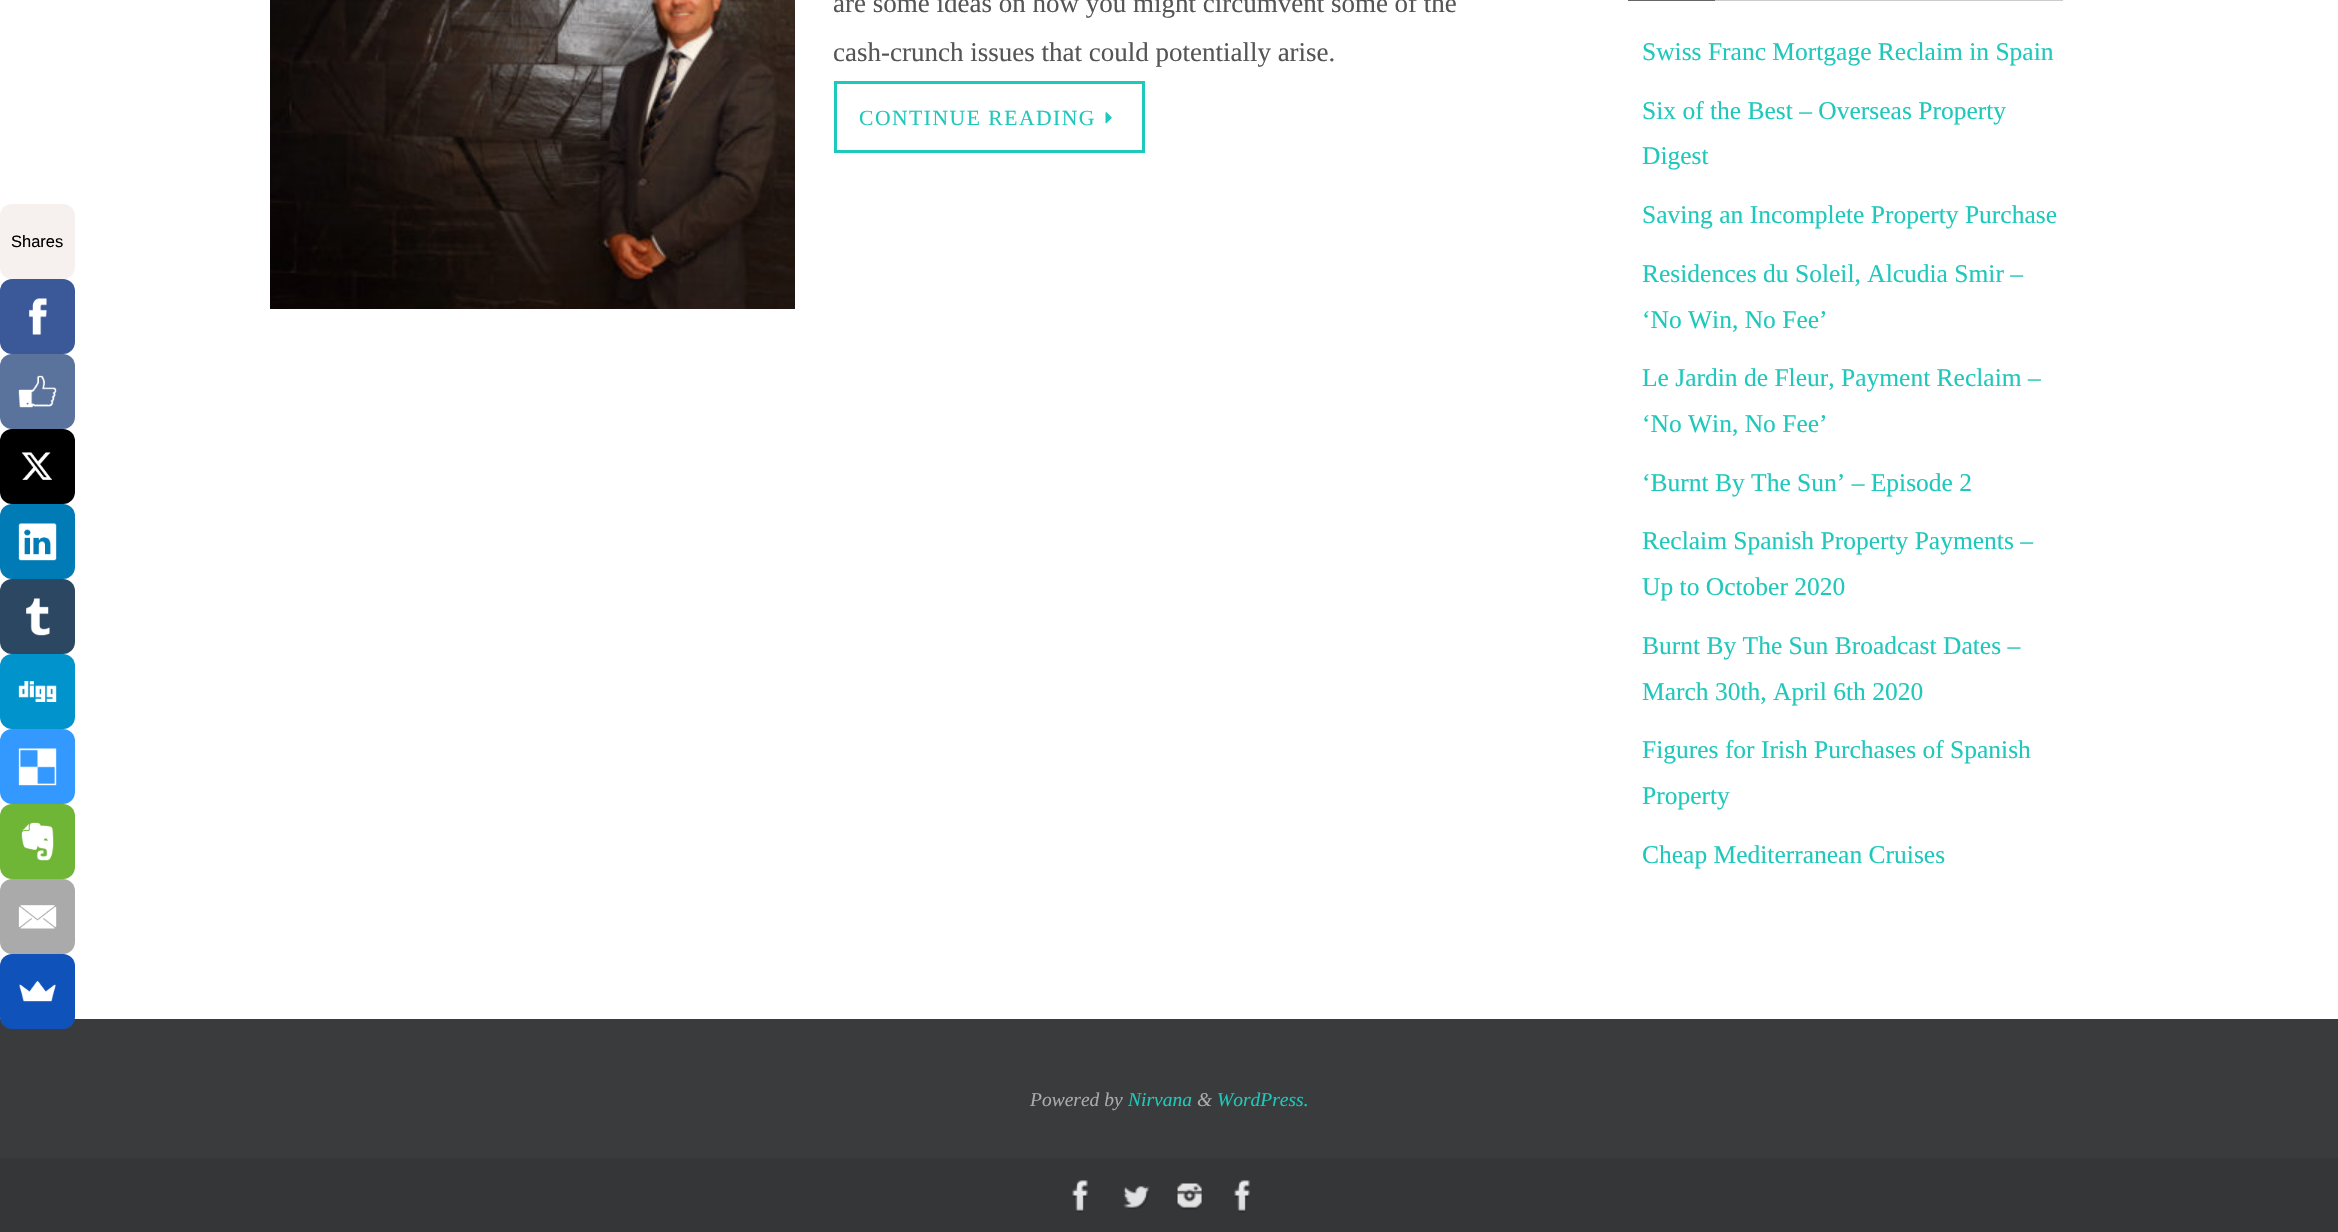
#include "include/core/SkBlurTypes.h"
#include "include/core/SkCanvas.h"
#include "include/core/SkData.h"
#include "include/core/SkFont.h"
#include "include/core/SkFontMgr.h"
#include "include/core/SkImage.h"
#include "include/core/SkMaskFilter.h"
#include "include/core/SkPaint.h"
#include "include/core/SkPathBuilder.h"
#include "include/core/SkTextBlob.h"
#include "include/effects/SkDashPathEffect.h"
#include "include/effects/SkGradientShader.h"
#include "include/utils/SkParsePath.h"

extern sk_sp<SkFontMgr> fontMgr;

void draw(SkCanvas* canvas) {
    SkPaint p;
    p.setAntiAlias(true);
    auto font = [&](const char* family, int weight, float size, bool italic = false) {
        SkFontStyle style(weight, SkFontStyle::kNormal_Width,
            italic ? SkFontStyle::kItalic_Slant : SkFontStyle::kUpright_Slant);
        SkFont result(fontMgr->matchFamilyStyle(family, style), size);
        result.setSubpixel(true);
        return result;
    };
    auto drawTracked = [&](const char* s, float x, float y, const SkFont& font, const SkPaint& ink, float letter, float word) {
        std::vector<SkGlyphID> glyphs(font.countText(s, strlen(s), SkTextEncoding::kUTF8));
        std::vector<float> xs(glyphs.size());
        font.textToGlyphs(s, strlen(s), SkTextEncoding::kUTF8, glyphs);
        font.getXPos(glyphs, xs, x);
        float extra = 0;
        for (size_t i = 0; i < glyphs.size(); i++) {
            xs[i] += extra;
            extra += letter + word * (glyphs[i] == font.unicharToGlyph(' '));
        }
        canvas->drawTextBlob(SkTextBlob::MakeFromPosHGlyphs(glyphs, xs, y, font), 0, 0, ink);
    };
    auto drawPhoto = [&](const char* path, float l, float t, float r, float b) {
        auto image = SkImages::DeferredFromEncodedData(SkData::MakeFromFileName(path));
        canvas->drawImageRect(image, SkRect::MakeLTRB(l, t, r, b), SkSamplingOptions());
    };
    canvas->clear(0xFFFFFFFF);
    p.setColor(0xFFF6F1EE);
    canvas->drawRoundRect(SkRect::MakeLTRB(0, 204, 75, 279), 12, 12, p);
    auto font1 = font("Liberation Sans", 400, 16.5f);
    p.setColor(0xFF000000);
    canvas->drawString("Shares", 11, 247, font1, p);
    p.setColor(0xFF3B5998);
    canvas->drawRoundRect(SkRect::MakeLTRB(0, 279, 75, 354), 12, 12, p);
    drawPhoto("media/1.png", 29, 298, 47, 335);
    p.setColor(0xFF5A739D);
    canvas->drawRoundRect(SkRect::MakeLTRB(0, 354, 75, 429), 12, 12, p);
    drawPhoto("media/2.png", 18, 375, 57, 408);
    p.setColor(0xFF000000);
    canvas->drawRoundRect(SkRect::MakeLTRB(0, 429, 75, 504), 12, 12, p);
    drawPhoto("media/3.png", 21, 452, 52, 480);
    p.setColor(0xFF007BB6);
    canvas->drawRoundRect(SkRect::MakeLTRB(0, 504, 75, 579), 12, 12, p);
    drawPhoto("media/4.png", 18, 523, 57, 561);
    p.setColor(0xFF2C4762);
    canvas->drawRoundRect(SkRect::MakeLTRB(0, 579, 75, 654), 12, 12, p);
    drawPhoto("media/5.png", 26, 598, 50, 636);
    p.setColor(0xFF0093CC);
    canvas->drawRoundRect(SkRect::MakeLTRB(0, 654, 75, 729), 12, 12, p);
    drawPhoto("media/6.png", 18, 681, 57, 702);
    p.setColor(0xFF3399FF);
    canvas->drawRoundRect(SkRect::MakeLTRB(0, 729, 75, 804), 12, 12, p);
    drawPhoto("media/7.png", 18, 748, 57, 786);
    p.setColor(0xFF6FB536);
    canvas->drawRoundRect(SkRect::MakeLTRB(0, 804, 75, 879), 12, 12, p);
    drawPhoto("media/8.png", 21, 822, 54, 861);
    p.setColor(0xFFAAAAAA);
    canvas->drawRoundRect(SkRect::MakeLTRB(0, 879, 75, 954), 12, 12, p);
    drawPhoto("media/9.png", 18, 905, 57, 929);
    p.setColor(0xFF3A3B3D);
    canvas->drawRect(SkRect::MakeLTRB(0, 1019, 2338, 1158), p);
    p.setColor(0xFF0F52BA);
    canvas->drawRoundRect(SkRect::MakeLTRB(0, 954, 75, 1029), 12, 12, p);
    drawPhoto("media/10.png", 19, 981, 56, 1002);
    drawPhoto("media/11.png", 270, 0, 795, 309);
    auto font2 = font("Liberation Serif", 400, 27);
    p.setColor(0xFF555555);
    canvas->drawString("are some ideas on how you might circumvent some of the", 833, 12, font2, p);
    canvas->drawString("cash-crunch issues that could potentially arise.", 833, 61, font2, p);
    p.setStyle(SkPaint::kStroke_Style);
    p.setStrokeWidth(3);
    p.setColor(0xFF1EC8BB);
    canvas->drawRect(SkRect::MakeLTRB(835.5f, 82.5f, 1143.5f, 151.5f), p);
    auto font3 = font("Liberation Serif", 400, 21.6f);
    p.setStyle(SkPaint::kFill_Style);
    drawTracked("CONTINUE READING", 859, 125, font3, p, 1.5f, 0);
    drawPhoto("media/12.png", 1105, 112, 1112, 124);
    p.setColor(0xFFCCCCCC);
    canvas->drawRect(SkRect::MakeLTRB(1715, 0, 2063, 1), p);
    p.setColor(0xFF666666);
    canvas->drawRect(SkRect::MakeLTRB(1628, 0, 1715, 1), p);
    auto font4 = font("Liberation Serif", 400, 25.5f);
    p.setColor(0xFF1EC8BB);
    {
        const struct { const char* s; float x, y; } items[] = {
            {"Swiss Franc Mortgage Reclaim in Spain", 1642, 60},
            {"Six of the Best – Overseas Property", 1642, 119},
            {"Digest", 1642, 164},
            {"Saving an Incomplete Property Purchase", 1642, 223},
            {"Residences du Soleil, Alcudia Smir –", 1642, 282},
            {"‘No Win, No Fee’", 1642, 328},
            {"Le Jardin de Fleur, Payment Reclaim –", 1642, 386},
            {"‘No Win, No Fee’", 1642, 432},
            {"‘Burnt By The Sun’ – Episode 2", 1642, 491},
            {"Reclaim Spanish Property Payments –", 1642, 549},
            {"Up to October 2020", 1642, 595},
            {"Burnt By The Sun Broadcast Dates –", 1642, 654},
            {"March 30th, April 6th 2020", 1642, 700},
            {"Figures for Irish Purchases of Spanish", 1642, 758},
            {"Property", 1642, 804},
            {"Cheap Mediterranean Cruises", 1642, 863},
        };
        for (auto [s, x, y] : items) {
            canvas->drawString(s, x, y, font4, p);
        }
    }
    auto font5 = font("Liberation Serif", 400, 19.5f, true);
    p.setColor(0xFFAAAAAA);
    canvas->drawString("Powered by", 1030, 1106, font5, p);
    p.setColor(0xFF1EC8BB);
    canvas->drawString("Nirvana", 1128, 1106, font5, p);
    p.setColor(0xFFAAAAAA);
    canvas->drawString("&", 1197, 1106, font5, p);
    p.setColor(0xFF1EC8BB);
    canvas->drawString("WordPress.", 1217, 1106, font5, p);
    p.setColor(0xFF353638);
    canvas->drawRect(SkRect::MakeLTRB(0, 1158, 2338, 1232), p);
    drawPhoto("media/13.png", 1072, 1180, 1088, 1213);
    drawPhoto("media/14.png", 1123, 1186, 1150, 1209);
    drawPhoto("media/15.png", 1176, 1183, 1203, 1210);
    drawPhoto("media/13.png", 1234, 1180, 1250, 1213);
}
